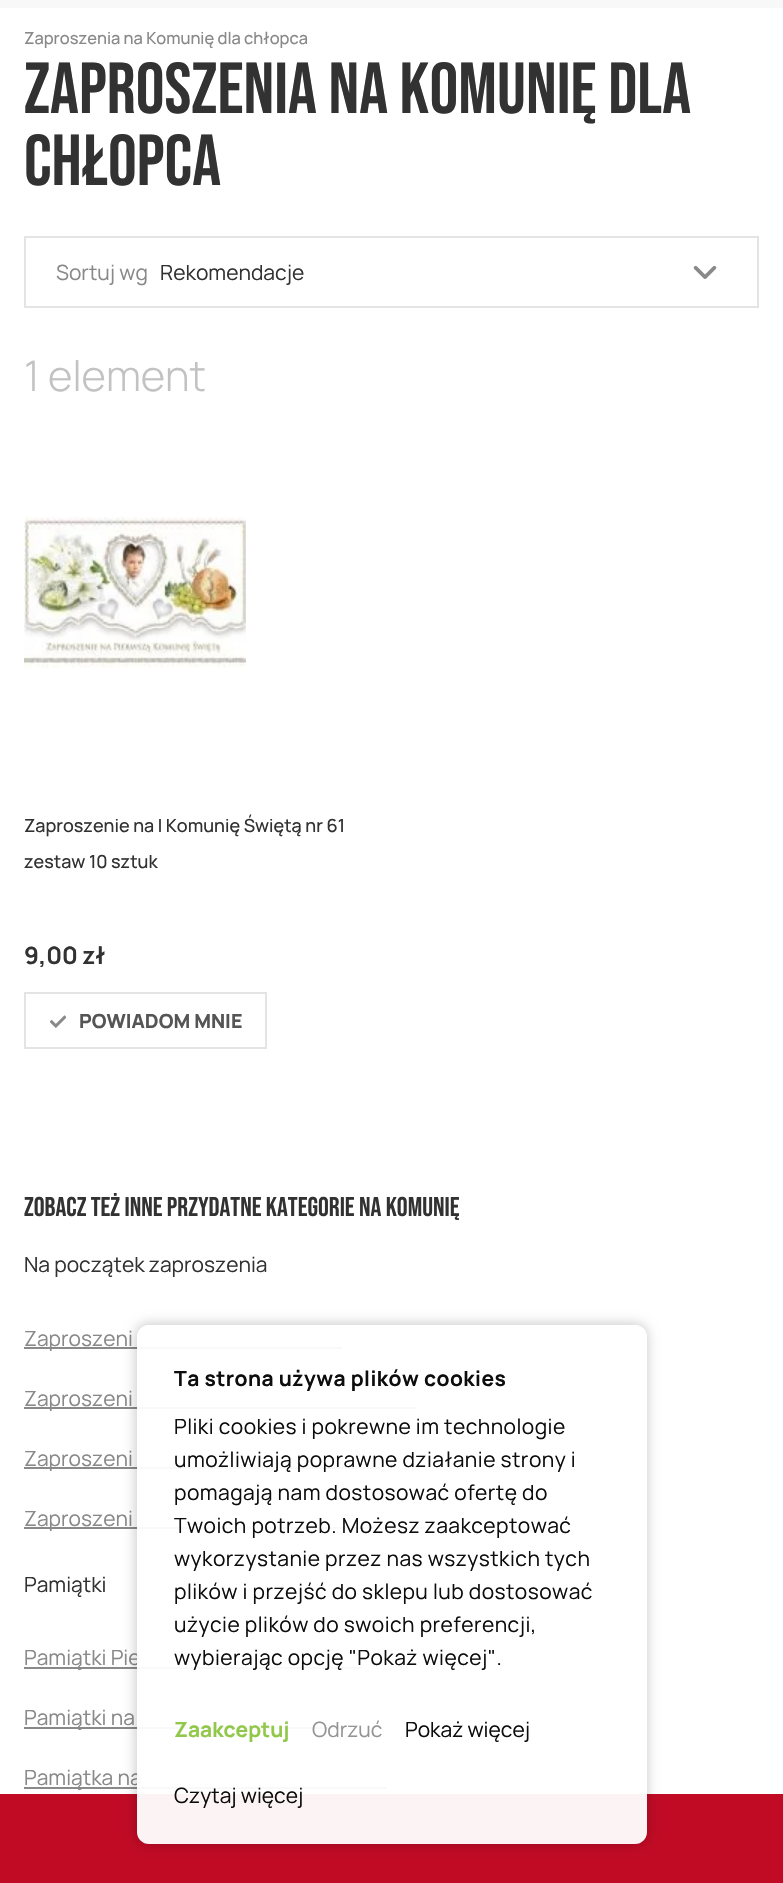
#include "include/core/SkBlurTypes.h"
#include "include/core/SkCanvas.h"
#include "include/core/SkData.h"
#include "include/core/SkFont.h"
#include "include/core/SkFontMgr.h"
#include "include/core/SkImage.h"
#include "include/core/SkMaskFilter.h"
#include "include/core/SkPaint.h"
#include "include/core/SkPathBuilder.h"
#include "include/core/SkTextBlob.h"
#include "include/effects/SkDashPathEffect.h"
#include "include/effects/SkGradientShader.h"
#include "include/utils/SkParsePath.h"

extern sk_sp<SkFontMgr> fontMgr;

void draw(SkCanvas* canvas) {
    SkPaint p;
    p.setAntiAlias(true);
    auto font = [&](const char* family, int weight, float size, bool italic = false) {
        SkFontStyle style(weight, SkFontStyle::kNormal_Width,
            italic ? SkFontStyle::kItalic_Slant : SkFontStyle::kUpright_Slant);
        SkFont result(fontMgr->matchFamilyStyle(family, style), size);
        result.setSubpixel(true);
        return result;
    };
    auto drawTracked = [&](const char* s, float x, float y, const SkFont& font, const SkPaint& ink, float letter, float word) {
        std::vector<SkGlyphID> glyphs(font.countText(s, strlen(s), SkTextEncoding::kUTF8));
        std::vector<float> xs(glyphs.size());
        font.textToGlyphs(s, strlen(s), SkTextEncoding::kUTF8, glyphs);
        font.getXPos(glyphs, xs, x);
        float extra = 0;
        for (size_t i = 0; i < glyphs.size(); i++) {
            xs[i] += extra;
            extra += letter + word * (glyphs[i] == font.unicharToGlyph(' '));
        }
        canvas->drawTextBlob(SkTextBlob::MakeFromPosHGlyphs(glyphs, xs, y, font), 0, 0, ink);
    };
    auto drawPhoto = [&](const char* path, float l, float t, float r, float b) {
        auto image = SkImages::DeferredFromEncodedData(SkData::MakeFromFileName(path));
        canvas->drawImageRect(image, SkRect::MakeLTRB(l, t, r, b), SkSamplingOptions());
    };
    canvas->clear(0xFFFFFFFF);
    p.setColor(0xFFF8F8F8);
    canvas->drawRect(SkRect::MakeLTRB(0, 0, 783, 8), p);
    auto font1 = font("Manrope", 500, 16.5f);
    p.setColor(0xFF898989);
    canvas->drawString("Zaproszenia na Komunię dla chłopca", 24, 44, font1, p);
    auto font2 = font("Bebas Neue", 400, 72);
    p.setColor(0xFF323232);
    canvas->drawString("ZAPROSZENIA NA KOMUNIĘ DLA", 24, 113, font2, p);
    canvas->drawString("CHŁOPCA", 24, 185, font2, p);
    p.setStyle(SkPaint::kStroke_Style);
    p.setStrokeWidth(2);
    p.setColor(0xFFE4E4E4);
    canvas->drawRect(SkRect::MakeLTRB(25, 237, 758, 307), p);
    auto font3 = font("Manrope", 400, 21);
    p.setStyle(SkPaint::kFill_Style);
    p.setColor(0xFF898989);
    canvas->drawString("Sortuj wg", 56, 280, font3, p);
    drawPhoto("media/1.png", 693, 265, 717, 279);
    p.setColor(0xFF323232);
    canvas->drawString("Rekomendacje", 160, 280, font3, p);
    auto font4 = font("Manrope", 300, 42);
    p.setColor(0xFFC2C2C2);
    canvas->drawString("1 element", 24, 391, font4, p);
    drawPhoto("media/2.png", 24, 517, 246, 668);
    auto font5 = font("Manrope", 500, 18);
    p.setColor(0xFF323232);
    canvas->drawString("Zaproszenie na I Komunię Świętą nr 61", 24, 832, font5, p);
    canvas->drawString("zestaw 10 sztuk", 24, 868, font5, p);
    auto font6 = font("Manrope", 700, 24);
    canvas->drawString("9,00 zł", 24, 964, font6, p);
    p.setStyle(SkPaint::kStroke_Style);
    p.setColor(0xFFE4E4E4);
    canvas->drawRect(SkRect::MakeLTRB(25, 993, 266, 1048), p);
    drawPhoto("media/3.png", 50, 1015, 66, 1028);
    auto font7 = font("Manrope", 800, 19.5f);
    p.setStyle(SkPaint::kFill_Style);
    p.setColor(0xFF555555);
    canvas->drawString("POWIADOM MNIE", 79, 1028, font7, p);
    auto font8 = font("Bebas Neue", 400, 27);
    p.setColor(0xFF323232);
    canvas->drawString("Zobacz też inne przydatne kategorie na Komunię", 24, 1216, font8, p);
    canvas->drawString("Na początek zaproszenia", 24, 1272, font3, p);
    p.setColor(0xFF898989);
    canvas->drawRect(SkRect::MakeLTRB(24, 1347, 342, 1349), p);
    canvas->drawString("Zaproszeni", 24, 1346, font3, p);
    canvas->drawRect(SkRect::MakeLTRB(24, 1407, 417, 1409), p);
    canvas->drawString("Zaproszeni", 24, 1406, font3, p);
    canvas->drawRect(SkRect::MakeLTRB(24, 1467, 380, 1469), p);
    canvas->drawString("Zaproszeni", 24, 1466, font3, p);
    canvas->drawRect(SkRect::MakeLTRB(24, 1527, 425, 1529), p);
    canvas->drawString("Zaproszeni", 24, 1526, font3, p);
    p.setColor(0xFF323232);
    canvas->drawString("Pamiątki", 24, 1592, font3, p);
    p.setColor(0xFF898989);
    canvas->drawRect(SkRect::MakeLTRB(24, 1667, 362, 1669), p);
    canvas->drawString("Pamiątki Pie", 24, 1665, font3, p);
    canvas->drawRect(SkRect::MakeLTRB(24, 1727, 342, 1729), p);
    canvas->drawString("Pamiątki na", 24, 1725, font3, p);
    canvas->drawRect(SkRect::MakeLTRB(24, 1787, 387, 1789), p);
    canvas->drawString("Pamiątka na", 24, 1785, font3, p);
    p.setColor(0xFFC10B25);
    canvas->drawRect(SkRect::MakeLTRB(0, 1794, 783, 1883), p);
    canvas->save();
    canvas->clipPath(SkPathBuilder(SkPathFillType::kEvenOdd).moveTo(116, 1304).lineTo(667, 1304).lineTo(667, 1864).lineTo(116, 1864).close().moveTo(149, 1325).lineTo(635, 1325).cubicTo(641.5f, 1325, 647, 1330.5f, 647, 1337).lineTo(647, 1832).cubicTo(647, 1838.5f, 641.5f, 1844, 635, 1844).lineTo(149, 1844).cubicTo(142.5f, 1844, 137, 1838.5f, 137, 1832).lineTo(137, 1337).cubicTo(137, 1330.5f, 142.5f, 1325, 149, 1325).close().detach(), true);
    p.setColor(0x30000000);
    p.setMaskFilter(SkMaskFilter::MakeBlur(kNormal_SkBlurStyle, 6));
    canvas->drawRoundRect(SkRect::MakeLTRB(135, 1323, 648, 1845), 14, 14, p);
    p.setMaskFilter(nullptr);
    canvas->restore();
    p.setColor(0xF2FFFFFF);
    canvas->drawRoundRect(SkRect::MakeLTRB(137, 1325, 647, 1844), 12, 12, p);
    auto font9 = font("Manrope", 700, 21);
    p.setColor(0xFF0D0D0D);
    drawTracked("Ta strona używa plików cookies", 174, 1386, font9, p, 0.45f, 0);
    {
        const struct { const char* s; float x, y; } items[] = {
            {"Pliki cookies i pokrewne im technologie", 174, 1434},
            {"umożliwiają poprawne działanie strony i", 174, 1467},
            {"pomagają nam dostosować ofertę do", 174, 1500},
            {"Twoich potrzeb. Możesz zaakceptować", 174, 1533},
            {"wykorzystanie przez nas wszystkich tych", 174, 1566},
            {"plików i przejść do sklepu lub dostosować", 174, 1599},
            {"użycie plików do swoich preferencji,", 174, 1632},
            {"wybierając opcję \"Pokaż więcej\".", 174, 1665},
        };
        for (auto [s, x, y] : items) {
            drawTracked(s, x, y, font3, p, 0.45f, 0);
        }
    }
    p.setColor(0xFF91C849);
    canvas->drawString("Zaakceptuj", 174, 1737, font9, p);
    p.setColor(0xFF949494);
    canvas->drawString("Odrzuć", 312, 1737, font3, p);
    p.setColor(0xFF0D0D0D);
    canvas->drawString("Pokaż więcej", 405, 1737, font3, p);
    canvas->drawString("Czytaj więcej", 174, 1803, font3, p);
}
